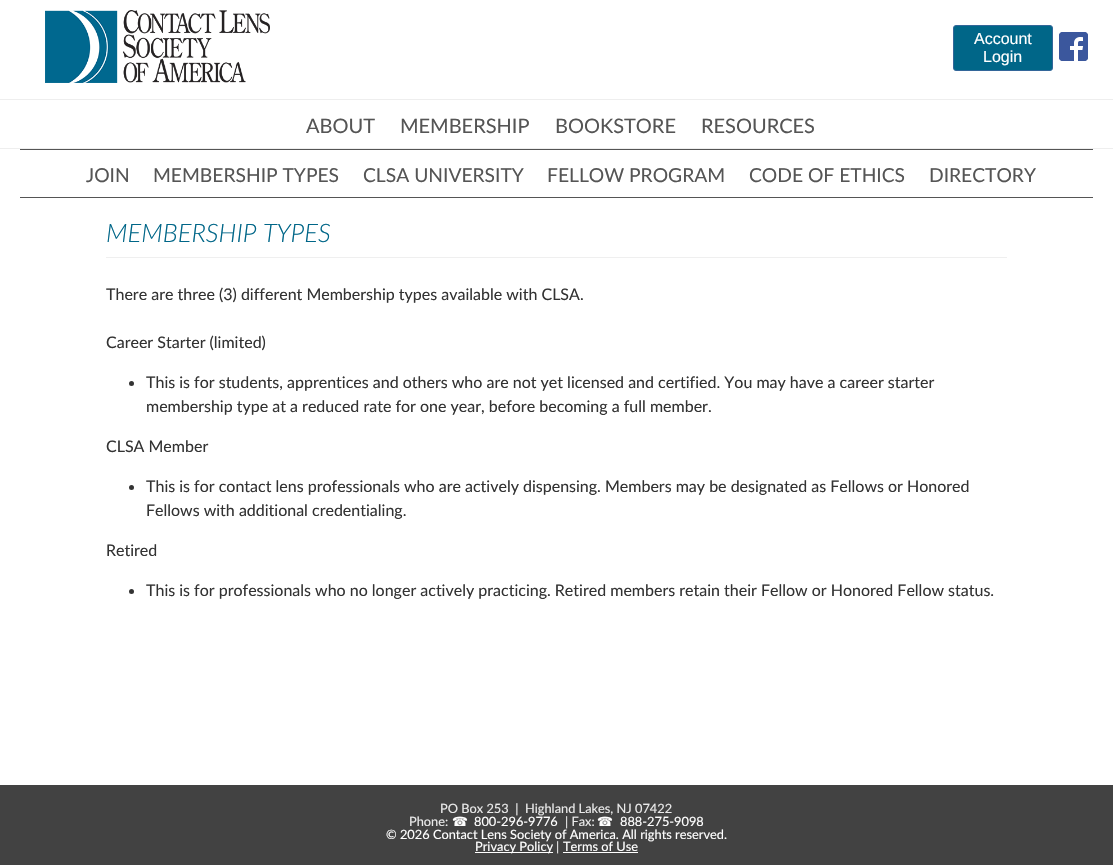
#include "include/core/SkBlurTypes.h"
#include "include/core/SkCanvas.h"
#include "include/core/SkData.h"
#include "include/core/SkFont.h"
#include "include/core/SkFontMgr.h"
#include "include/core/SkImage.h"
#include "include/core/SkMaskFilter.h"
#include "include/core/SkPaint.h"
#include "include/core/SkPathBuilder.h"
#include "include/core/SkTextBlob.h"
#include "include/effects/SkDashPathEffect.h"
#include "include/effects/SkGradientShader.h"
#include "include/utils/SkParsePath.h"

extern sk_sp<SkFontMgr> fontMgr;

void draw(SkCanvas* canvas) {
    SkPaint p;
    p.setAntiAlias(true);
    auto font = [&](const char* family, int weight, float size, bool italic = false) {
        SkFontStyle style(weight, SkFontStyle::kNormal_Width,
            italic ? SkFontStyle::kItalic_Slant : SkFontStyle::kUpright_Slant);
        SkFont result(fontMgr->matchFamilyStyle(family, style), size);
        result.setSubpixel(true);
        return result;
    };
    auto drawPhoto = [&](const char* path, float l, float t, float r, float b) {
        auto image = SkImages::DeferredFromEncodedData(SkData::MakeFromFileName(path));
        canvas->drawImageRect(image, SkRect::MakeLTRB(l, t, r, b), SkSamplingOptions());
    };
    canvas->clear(0xFFFFFFFF);
    p.setColor(0xFFEEEEEE);
    canvas->drawRect(SkRect::MakeLTRB(0, 99, 1113, 100), p);
    drawPhoto("media/1.png", 45, 10, 270, 83);
    p.setColor(0xFF006688);
    canvas->drawRoundRect(SkRect::MakeLTRB(953.5f, 25.5f, 1052.5f, 70.5f), 2.5f, 2.5f, p);
    p.setStyle(SkPaint::kStroke_Style);
    p.setStrokeWidth(1);
    p.setColor(0xFF336699);
    canvas->drawRoundRect(SkRect::MakeLTRB(953.5f, 25.5f, 1052.5f, 70.5f), 2.5f, 2.5f, p);
    auto font1 = font("Liberation Sans", 400, 16);
    p.setStyle(SkPaint::kFill_Style);
    p.setColor(0xFFFFFFFF);
    canvas->drawString("Account", 974, 44, font1, p);
    canvas->drawString("Login", 983, 62, font1, p);
    drawPhoto("media/2.png", 1059, 32, 1088, 61);
    p.setColor(0xFFEEEEEE);
    canvas->drawRect(SkRect::MakeLTRB(0, 148, 1113, 149), p);
    auto font2 = font("Lato", 400, 20);
    p.setColor(0xFF555555);
    {
        const struct { const char* s; float x, y; } items[] = {
            {"ABOUT", 306, 133},
            {"MEMBERSHIP", 400, 133},
            {"BOOKSTORE", 555, 133},
            {"RESOURCES", 701, 133},
        };
        for (auto [s, x, y] : items) {
            canvas->drawString(s, x, y, font2, p);
        }
    }
    canvas->drawRect(SkRect::MakeLTRB(20, 149, 1093, 150), p);
    canvas->drawRect(SkRect::MakeLTRB(20, 197, 1093, 198), p);
    auto font3 = font("Lato", 400, 19.25f);
    {
        const struct { const char* s; float x, y; } items[] = {
            {"JOIN", 86, 182},
            {"MEMBERSHIP TYPES", 153, 182},
            {"CLSA UNIVERSITY", 363, 182},
            {"FELLOW PROGRAM", 547, 182},
            {"CODE OF ETHICS", 749, 182},
            {"DIRECTORY", 929, 182},
        };
        for (auto [s, x, y] : items) {
            canvas->drawString(s, x, y, font3, p);
        }
    }
    p.setColor(0xFFEFEFEF);
    canvas->drawRect(SkRect::MakeLTRB(106, 257, 1007, 258), p);
    auto font4 = font("Lato", 300, 25.5f, true);
    p.setColor(0xFF006688);
    canvas->drawString("MEMBERSHIP TYPES", 106, 242, font4, p);
    auto font5 = font("Lato", 400, 16);
    p.setColor(0xFF333333);
    canvas->drawString("There are three (3) different Membership types available with CLSA.", 106, 300, font5, p);
    canvas->drawString("Career Starter (limited)", 106, 348, font5, p);
    canvas->drawCircle(131.5f, 383.5f, 2.5f, p);
    {
        const struct { const char* s; float x, y; } items[] = {
            {"This is for students, apprentices and others who are not yet licensed and certified. You may have a career starter", 146, 388},
            {"membership type at a reduced rate for one year, before becoming a full member.", 146, 412},
            {"CLSA Member", 106, 452},
        };
        for (auto [s, x, y] : items) {
            canvas->drawString(s, x, y, font5, p);
        }
    }
    canvas->drawCircle(131.5f, 487.5f, 2.5f, p);
    {
        const struct { const char* s; float x, y; } items[] = {
            {"This is for contact lens professionals who are actively dispensing. Members may be designated as Fellows or Honored", 146, 492},
            {"Fellows with additional credentialing.", 146, 516},
            {"Retired", 106, 556},
        };
        for (auto [s, x, y] : items) {
            canvas->drawString(s, x, y, font5, p);
        }
    }
    canvas->drawCircle(131.5f, 591.5f, 2.5f, p);
    canvas->drawString("This is for professionals who no longer actively practicing. Retired members retain their Fellow or Honored Fellow status.", 146, 596, font5, p);
    p.setColor(0xFF424242);
    canvas->drawRect(SkRect::MakeLTRB(0, 785, 1113, 865), p);
    auto font6 = font("Lato", 400, 12.8f);
    p.setColor(0xFFEAEAEA);
    canvas->drawString("PO Box 253  |  Highland Lakes, NJ 07422", 440, 813, font6, p);
    canvas->drawString("Phone:", 409, 826, font6, p);
    auto font7 = font("DejaVu Sans", 400, 12.8f);
    p.setColor(0xFFFFFFFF);
    canvas->drawString("☎", 452, 826, font7, p);
    canvas->drawString("800-296-9776", 474, 826, font6, p);
    p.setColor(0xFFEAEAEA);
    canvas->drawString("| Fax:", 565, 826, font6, p);
    p.setColor(0xFFFFFFFF);
    canvas->drawString("☎", 597, 826, font7, p);
    canvas->drawString("888-275-9098", 620, 826, font6, p);
    canvas->drawString("© 2026 Contact Lens Society of America. All rights reserved.", 386, 839, font6, p);
    canvas->drawRect(SkRect::MakeLTRB(475, 852, 553, 853), p);
    canvas->drawString("Privacy Policy", 475, 851, font6, p);
    p.setColor(0xFFEAEAEA);
    canvas->drawString("|", 556, 851, font6, p);
    p.setColor(0xFFFFFFFF);
    canvas->drawString("Terms of Use", 563, 851, font6, p);
    canvas->drawRect(SkRect::MakeLTRB(563, 852, 638, 853), p);
}
